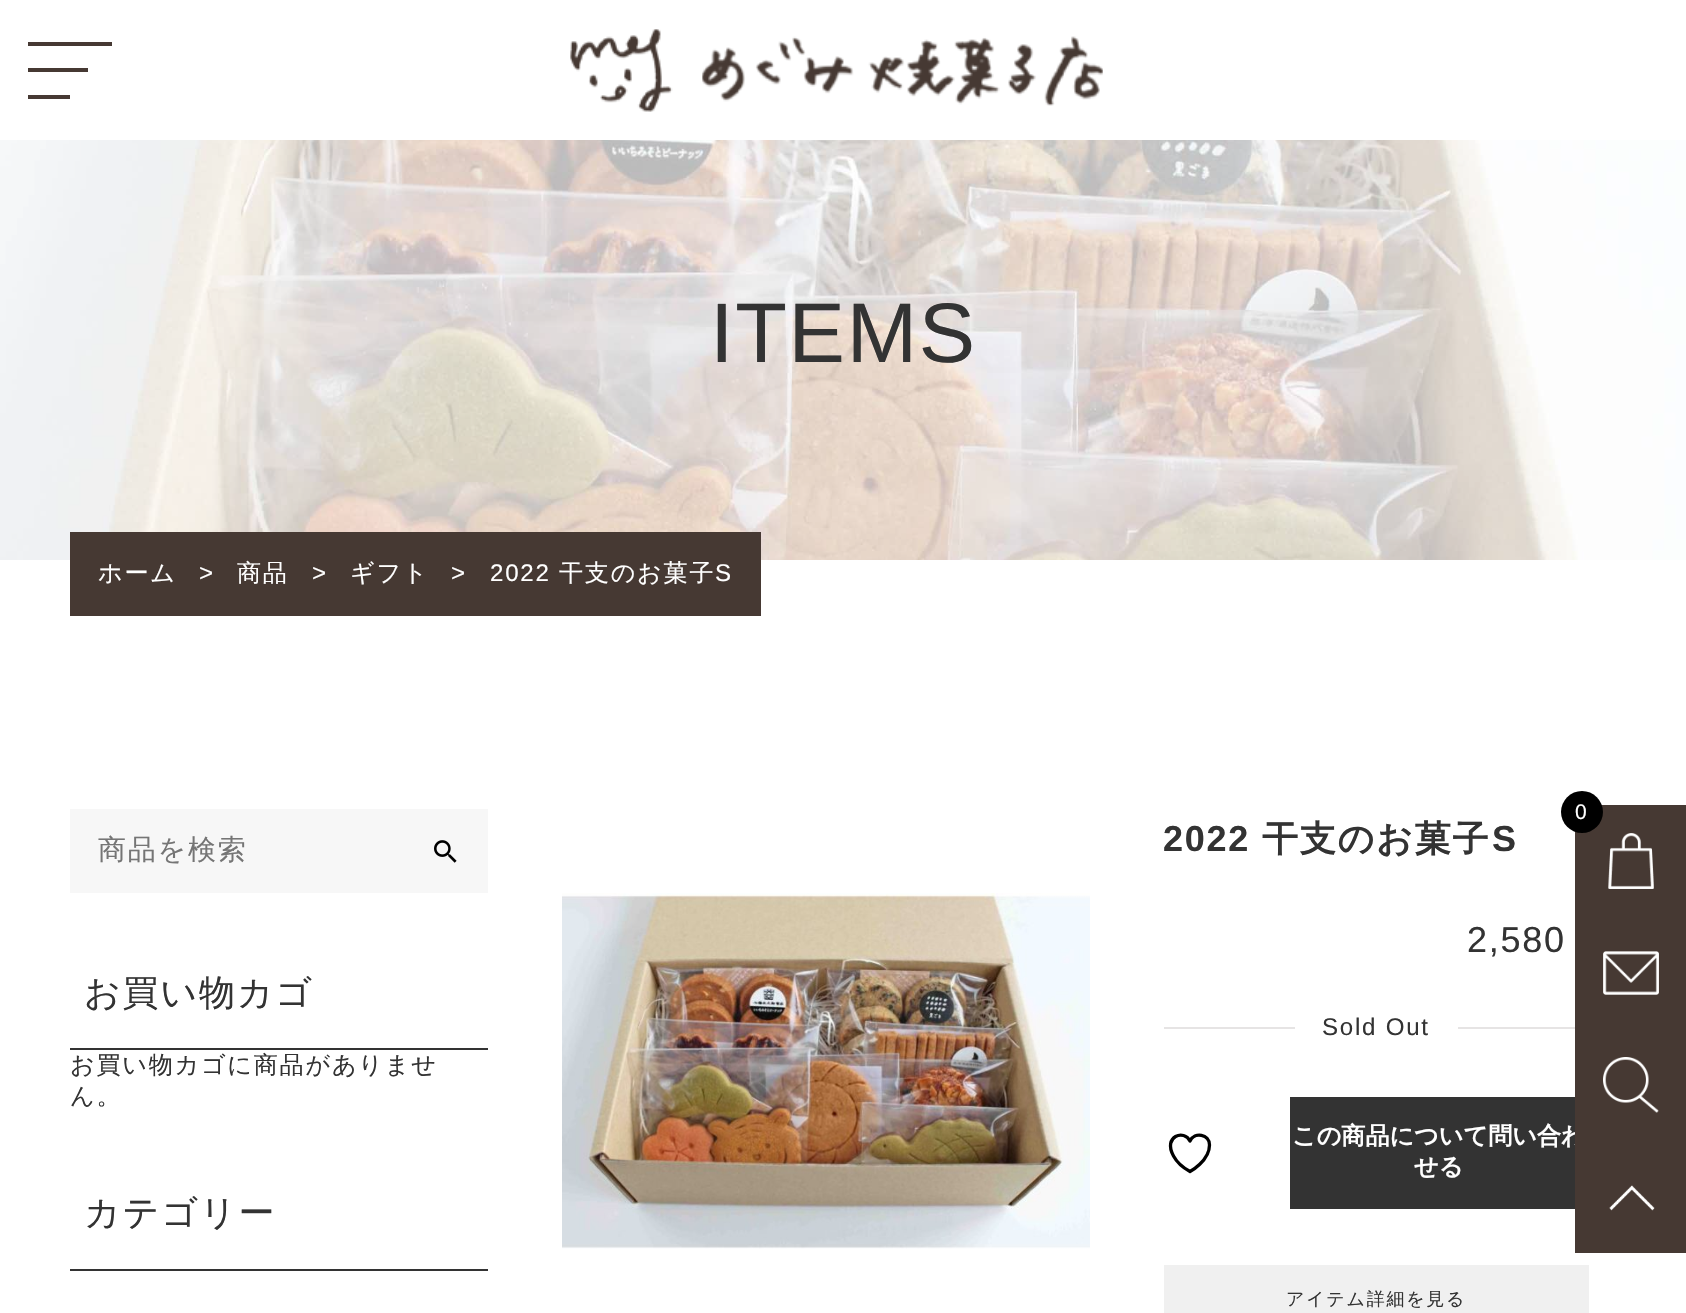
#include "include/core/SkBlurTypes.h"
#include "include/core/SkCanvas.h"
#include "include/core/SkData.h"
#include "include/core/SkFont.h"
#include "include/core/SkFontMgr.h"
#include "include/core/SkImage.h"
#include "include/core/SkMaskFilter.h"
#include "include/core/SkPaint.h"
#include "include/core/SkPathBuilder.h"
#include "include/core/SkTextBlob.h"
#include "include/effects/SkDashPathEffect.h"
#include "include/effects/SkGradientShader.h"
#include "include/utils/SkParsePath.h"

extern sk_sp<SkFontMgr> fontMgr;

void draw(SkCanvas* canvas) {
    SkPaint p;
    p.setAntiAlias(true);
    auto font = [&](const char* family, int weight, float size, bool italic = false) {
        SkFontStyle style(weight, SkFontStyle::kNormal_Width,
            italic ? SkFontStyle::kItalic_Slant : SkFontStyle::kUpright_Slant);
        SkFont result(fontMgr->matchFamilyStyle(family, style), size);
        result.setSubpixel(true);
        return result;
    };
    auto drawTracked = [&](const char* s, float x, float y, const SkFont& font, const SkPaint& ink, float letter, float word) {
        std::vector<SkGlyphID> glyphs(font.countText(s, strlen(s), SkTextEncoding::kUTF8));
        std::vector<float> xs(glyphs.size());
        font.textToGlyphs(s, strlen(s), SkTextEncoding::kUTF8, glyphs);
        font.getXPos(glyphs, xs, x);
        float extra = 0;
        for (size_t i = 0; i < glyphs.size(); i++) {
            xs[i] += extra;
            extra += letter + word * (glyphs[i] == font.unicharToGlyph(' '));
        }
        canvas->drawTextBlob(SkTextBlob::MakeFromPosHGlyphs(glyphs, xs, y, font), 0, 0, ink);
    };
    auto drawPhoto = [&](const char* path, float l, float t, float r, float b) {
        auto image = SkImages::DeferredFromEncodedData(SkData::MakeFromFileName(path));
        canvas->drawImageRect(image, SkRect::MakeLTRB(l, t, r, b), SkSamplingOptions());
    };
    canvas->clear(0xFFFFFFFF);
    {
        const struct { float l, t, r, b; SkColor color; } items[] = {
            {28, 42, 112, 46, 0xFF463933},
            {28, 68, 88, 72, 0xFF463933},
            {28, 95, 70, 99, 0xFF463933},
        };
        for (auto [l, t, r, b, color] : items) {
            p.setColor(color);
            canvas->drawRect(SkRect::MakeLTRB(l, t, r, b), p);
        }
    }
    drawPhoto("media/1.png", 570, 29, 1103, 112);
    drawPhoto("media/2.png", 0, 140, 1686, 560);
    auto font1 = font("Liberation Sans", 400, 84.5f);
    p.setColor(0xFF333333);
    drawTracked("ITEMS", 710, 362, font1, p, 1.75f, 0);
    p.setColor(0xFF463933);
    canvas->drawRect(SkRect::MakeLTRB(70, 532, 761, 616), p);
    auto font2 = font("WenQuanYi Zen Hei", 500, 24.1f);
    p.setColor(0xFFFFFFFF);
    drawTracked("ホーム", 98, 581, font2, p, 1.75f, 0);
    auto font3 = font("Liberation Sans", 400, 24.1f);
    drawTracked(">", 199, 581, font3, p, 1.75f, 0);
    drawTracked("商品", 237, 581, font2, p, 1.75f, 0);
    drawTracked(">", 312, 581, font3, p, 1.75f, 0);
    drawTracked("ギフト", 350, 581, font2, p, 1.75f, 0);
    drawTracked(">", 451, 581, font3, p, 1.75f, 0);
    drawTracked("2022", 490, 581, font3, p, 1.75f, 0);
    drawTracked("干支のお菓子", 559, 581, font2, p, 1.75f, 0);
    drawTracked("S", 715, 581, font3, p, 1.75f, 0);
    p.setColor(0xFFF7F7F7);
    canvas->drawRect(SkRect::MakeLTRB(70, 809, 488, 893), p);
    auto font4 = font("WenQuanYi Zen Hei", 500, 28);
    p.setColor(0xFF757575);
    drawTracked("商品を検索", 98, 859, font4, p, 1.75f, 0);
    drawPhoto("media/3.png", 434, 840, 457, 863);
    p.setColor(0xFF333333);
    canvas->drawRect(SkRect::MakeLTRB(70, 1048, 488, 1050), p);
    auto font5 = font("WenQuanYi Zen Hei", 500, 36);
    drawTracked("お買い物カゴ", 84, 1005, font5, p, 1.75f, 0);
    drawTracked("お買い物カゴに商品がありませ", 70, 1073, font2, p, 1.75f, 0);
    drawTracked("ん。", 70, 1104, font2, p, 1.75f, 0);
    canvas->drawRect(SkRect::MakeLTRB(70, 1269, 488, 1271), p);
    drawTracked("カテゴリー", 84, 1225, font5, p, 1.75f, 0);
    drawPhoto("media/4.png", 562, 893, 1090, 1249);
    auto font6 = font("Liberation Sans", 700, 36);
    drawTracked("2022", 1163, 851, font6, p, 1.75f, 0);
    auto font7 = font("WenQuanYi Zen Hei", 700, 36);
    drawTracked("干支のお菓子", 1262, 851, font7, p, 1.75f, 0);
    drawTracked("S", 1492, 851, font6, p, 1.75f, 0);
    auto font8 = font("Liberation Sans", 400, 36);
    drawTracked("2,580", 1467, 952, font8, p, 1.75f, 0);
    p.setColor(0xFFE6E4E4);
    canvas->drawRect(SkRect::MakeLTRB(1164, 1027, 1295, 1029), p);
    p.setColor(0xFF333333);
    drawTracked("Sold Out", 1322, 1035, font3, p, 1.75f, 0);
    p.setColor(0xFFE6E4E4);
    canvas->drawRect(SkRect::MakeLTRB(1458, 1027, 1575, 1029), p);
    p.setStyle(SkPaint::kStroke_Style);
    p.setStrokeWidth(3.3f);
    p.setStrokeCap(SkPaint::kRound_Cap);
    p.setStrokeJoin(SkPaint::kRound_Join);
    p.setColor(0xFF000000);
    canvas->drawPath(SkPathBuilder().moveTo(1209.5f, 1145).cubicTo(1209.5f, 1134, 1194.5f, 1131.5f, 1190, 1141).cubicTo(1184.5f, 1129, 1162.5f, 1136, 1173.5f, 1156).cubicTo(1177, 1162.5f, 1183.5f, 1168, 1190, 1171.5f).cubicTo(1190, 1171.5f, 1209.5f, 1161, 1209.5f, 1145).close().detach(), p);
    p.setStyle(SkPaint::kFill_Style);
    p.setColor(0xFF333333);
    canvas->drawRect(SkRect::MakeLTRB(1290, 1097, 1575, 1209), p);
    auto font9 = font("WenQuanYi Zen Hei", 700, 24.1f);
    p.setColor(0xFFFFFFFF);
    canvas->drawString("この商品について問い合わ", 1292, 1144, font9, p);
    canvas->drawString("せる", 1414, 1175, font9, p);
    p.setColor(0xFFF0F0F0);
    canvas->drawRect(SkRect::MakeLTRB(1164, 1265, 1589, 1313), p);
    auto font10 = font("WenQuanYi Zen Hei", 500, 18);
    p.setColor(0xFF333333);
    drawTracked("アイテム詳細を見る", 1286, 1305, font10, p, 1.75f, 0);
    p.setColor(0xFF463933);
    canvas->drawRect(SkRect::MakeLTRB(1575, 805, 1686, 1253), p);
    p.setColor(0xFF000000);
    canvas->drawCircle(1582, 812, 21, p);
    auto font11 = font("Liberation Sans", 400, 21);
    p.setColor(0xFFFFFFFF);
    drawTracked("0", 1575, 819, font11, p, 1.75f, 0);
    drawPhoto("media/5.png", 1608, 833, 1654, 889);
    drawPhoto("media/6.png", 1603, 951, 1659, 995);
    drawPhoto("media/7.png", 1603, 1057, 1659, 1113);
    drawPhoto("media/8.png", 1609, 1185, 1655, 1211);
}
